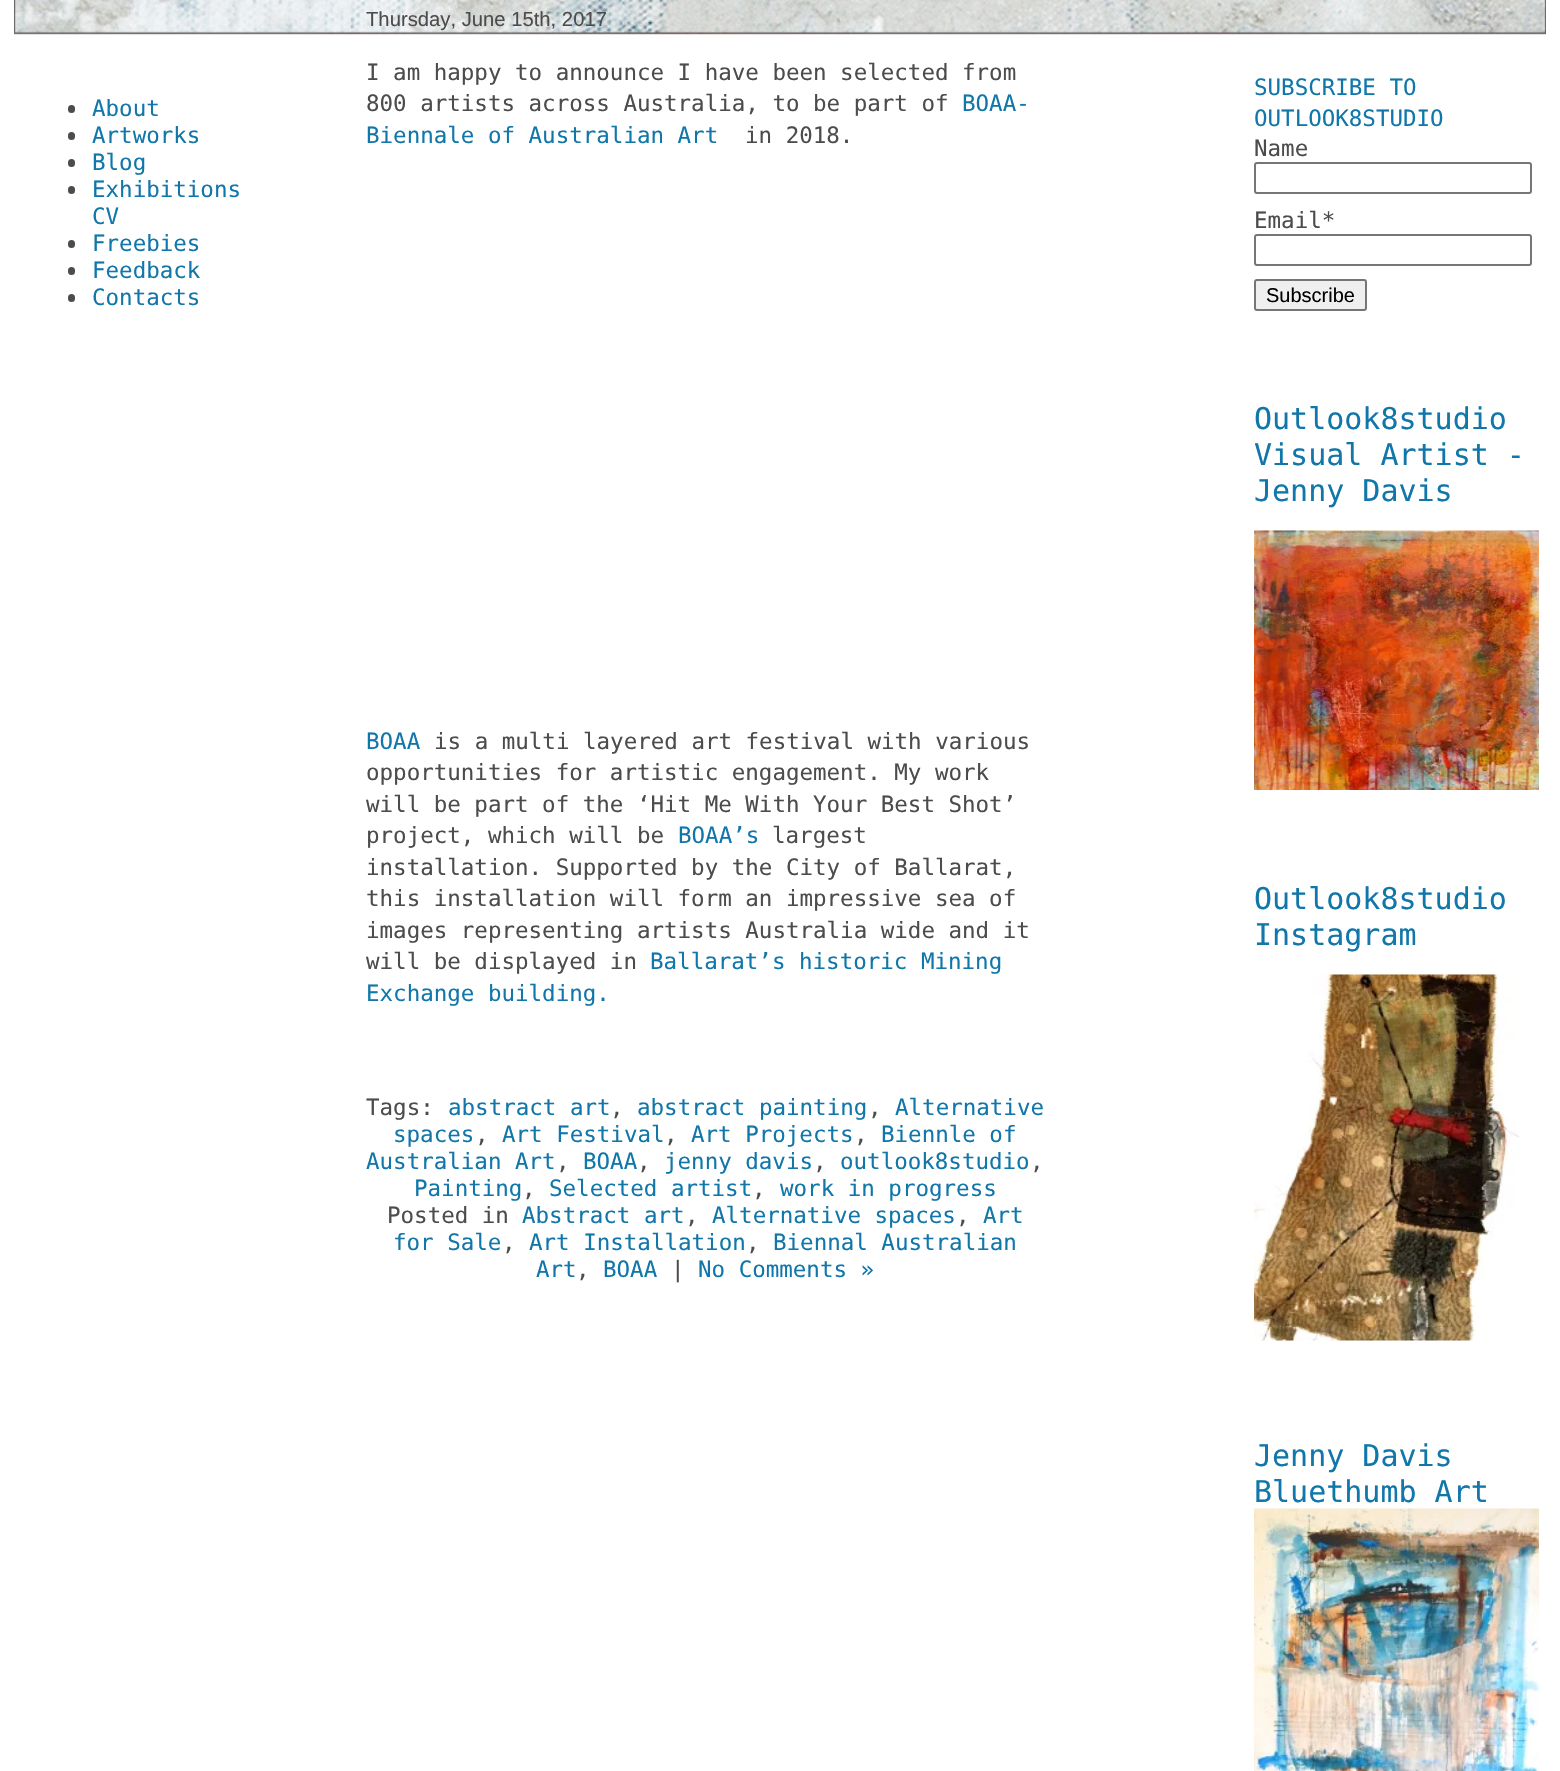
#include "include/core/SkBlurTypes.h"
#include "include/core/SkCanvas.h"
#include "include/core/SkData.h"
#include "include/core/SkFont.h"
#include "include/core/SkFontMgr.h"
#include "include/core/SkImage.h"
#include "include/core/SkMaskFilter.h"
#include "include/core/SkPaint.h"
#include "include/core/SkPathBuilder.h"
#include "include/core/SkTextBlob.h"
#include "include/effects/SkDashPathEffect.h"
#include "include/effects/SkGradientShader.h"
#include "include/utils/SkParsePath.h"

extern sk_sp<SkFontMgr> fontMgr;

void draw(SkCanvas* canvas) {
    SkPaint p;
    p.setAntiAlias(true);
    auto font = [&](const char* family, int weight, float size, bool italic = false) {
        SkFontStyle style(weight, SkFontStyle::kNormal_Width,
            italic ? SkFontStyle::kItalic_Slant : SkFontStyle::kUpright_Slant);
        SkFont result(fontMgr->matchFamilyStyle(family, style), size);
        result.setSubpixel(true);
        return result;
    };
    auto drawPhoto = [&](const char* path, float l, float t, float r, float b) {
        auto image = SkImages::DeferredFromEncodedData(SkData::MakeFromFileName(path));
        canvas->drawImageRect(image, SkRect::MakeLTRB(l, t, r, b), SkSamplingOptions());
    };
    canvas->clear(0xFFFFFFFF);
    drawPhoto("media/1.png", 14, 0, 1546, 35);
    p.setColor(0xFF4D4C4C);
    canvas->drawRoundRect(SkRect::MakeLTRB(68, 105, 75, 113), 3.5f, 3.5f, p);
    auto font1 = font("DejaVu Sans Mono", 400, 22.5f);
    p.setColor(0xFF1177AA);
    canvas->drawString("About", 92, 116, font1, p);
    p.setColor(0xFF4D4C4C);
    canvas->drawRoundRect(SkRect::MakeLTRB(68, 132, 75, 140), 3.5f, 3.5f, p);
    p.setColor(0xFF1177AA);
    canvas->drawString("Artworks", 92, 143, font1, p);
    p.setColor(0xFF4D4C4C);
    canvas->drawRoundRect(SkRect::MakeLTRB(68, 159, 75, 167), 3.5f, 3.5f, p);
    p.setColor(0xFF1177AA);
    canvas->drawString("Blog", 92, 170, font1, p);
    p.setColor(0xFF4D4C4C);
    canvas->drawRoundRect(SkRect::MakeLTRB(68, 186, 75, 194), 3.5f, 3.5f, p);
    p.setColor(0xFF1177AA);
    canvas->drawString("Exhibitions", 92, 197, font1, p);
    canvas->drawString("CV", 92, 224, font1, p);
    p.setColor(0xFF4D4C4C);
    canvas->drawRoundRect(SkRect::MakeLTRB(68, 240, 75, 248), 3.5f, 3.5f, p);
    p.setColor(0xFF1177AA);
    canvas->drawString("Freebies", 92, 251, font1, p);
    p.setColor(0xFF4D4C4C);
    canvas->drawRoundRect(SkRect::MakeLTRB(68, 267, 75, 275), 3.5f, 3.5f, p);
    p.setColor(0xFF1177AA);
    canvas->drawString("Feedback", 92, 278, font1, p);
    p.setColor(0xFF4D4C4C);
    canvas->drawRoundRect(SkRect::MakeLTRB(68, 294, 75, 302), 3.5f, 3.5f, p);
    p.setColor(0xFF1177AA);
    canvas->drawString("Contacts", 92, 305, font1, p);
    auto font2 = font("Liberation Sans", 400, 20.25f);
    p.setColor(0xFF4D4C4C);
    canvas->drawString("Thursday, June 15th, 2017", 366, 26, font2, p);
    canvas->drawString("I am happy to announce I have been selected from", 366, 80, font1, p);
    canvas->drawString("800 artists across Australia, to be part of", 366, 111, font1, p);
    p.setColor(0xFF1177AA);
    canvas->drawString("BOAA-", 962, 111, font1, p);
    canvas->drawString("Biennale of Australian Art", 366, 143, font1, p);
    p.setColor(0xFF4D4C4C);
    canvas->drawString("in 2018.", 745, 143, font1, p);
    p.setColor(0xFF1177AA);
    canvas->drawString("BOAA", 366, 749, font1, p);
    p.setColor(0xFF4D4C4C);
    {
        const struct { const char* s; float x, y; } items[] = {
            {"is a multi layered art festival with various", 434, 749},
            {"opportunities for artistic engagement. My work", 366, 780},
            {"will be part of the ‘Hit Me With Your Best Shot’", 366, 812},
            {"project, which will be", 366, 843},
        };
        for (auto [s, x, y] : items) {
            canvas->drawString(s, x, y, font1, p);
        }
    }
    p.setColor(0xFF1177AA);
    canvas->drawString("BOAA’s", 678, 843, font1, p);
    p.setColor(0xFF4D4C4C);
    {
        const struct { const char* s; float x, y; } items[] = {
            {"largest", 772, 843},
            {"installation. Supported by the City of Ballarat,", 366, 875},
            {"this installation will form an impressive sea of", 366, 906},
            {"images representing artists Australia wide and it", 366, 938},
            {"will be displayed in", 366, 969},
        };
        for (auto [s, x, y] : items) {
            canvas->drawString(s, x, y, font1, p);
        }
    }
    p.setColor(0xFF1177AA);
    canvas->drawString("Ballarat’s historic Mining", 650, 969, font1, p);
    canvas->drawString("Exchange building.", 366, 1001, font1, p);
    p.setColor(0xFF4D4C4C);
    canvas->drawString("Tags:", 366, 1115, font1, p);
    p.setColor(0xFF1177AA);
    canvas->drawString("abstract art", 448, 1115, font1, p);
    p.setColor(0xFF4D4C4C);
    canvas->drawString(",", 610, 1115, font1, p);
    p.setColor(0xFF1177AA);
    canvas->drawString("abstract painting", 637, 1115, font1, p);
    p.setColor(0xFF4D4C4C);
    canvas->drawString(",", 868, 1115, font1, p);
    p.setColor(0xFF1177AA);
    canvas->drawString("Alternative", 895, 1115, font1, p);
    canvas->drawString("spaces", 393, 1142, font1, p);
    p.setColor(0xFF4D4C4C);
    canvas->drawString(",", 475, 1142, font1, p);
    p.setColor(0xFF1177AA);
    canvas->drawString("Art Festival", 502, 1142, font1, p);
    p.setColor(0xFF4D4C4C);
    canvas->drawString(",", 664, 1142, font1, p);
    p.setColor(0xFF1177AA);
    canvas->drawString("Art Projects", 691, 1142, font1, p);
    p.setColor(0xFF4D4C4C);
    canvas->drawString(",", 854, 1142, font1, p);
    p.setColor(0xFF1177AA);
    canvas->drawString("Biennle of", 881, 1142, font1, p);
    canvas->drawString("Australian Art", 366, 1169, font1, p);
    p.setColor(0xFF4D4C4C);
    canvas->drawString(",", 556, 1169, font1, p);
    p.setColor(0xFF1177AA);
    canvas->drawString("BOAA", 583, 1169, font1, p);
    p.setColor(0xFF4D4C4C);
    canvas->drawString(",", 637, 1169, font1, p);
    p.setColor(0xFF1177AA);
    canvas->drawString("jenny davis", 664, 1169, font1, p);
    p.setColor(0xFF4D4C4C);
    canvas->drawString(",", 813, 1169, font1, p);
    p.setColor(0xFF1177AA);
    canvas->drawString("outlook8studio", 840, 1169, font1, p);
    p.setColor(0xFF4D4C4C);
    canvas->drawString(",", 1030, 1169, font1, p);
    p.setColor(0xFF1177AA);
    canvas->drawString("Painting", 414, 1196, font1, p);
    p.setColor(0xFF4D4C4C);
    canvas->drawString(",", 522, 1196, font1, p);
    p.setColor(0xFF1177AA);
    canvas->drawString("Selected artist", 549, 1196, font1, p);
    p.setColor(0xFF4D4C4C);
    canvas->drawString(",", 752, 1196, font1, p);
    p.setColor(0xFF1177AA);
    canvas->drawString("work in progress", 780, 1196, font1, p);
    p.setColor(0xFF4D4C4C);
    canvas->drawString("Posted in", 387, 1223, font1, p);
    p.setColor(0xFF1177AA);
    canvas->drawString("Abstract art", 522, 1223, font1, p);
    p.setColor(0xFF4D4C4C);
    canvas->drawString(",", 685, 1223, font1, p);
    p.setColor(0xFF1177AA);
    canvas->drawString("Alternative spaces", 712, 1223, font1, p);
    p.setColor(0xFF4D4C4C);
    canvas->drawString(",", 956, 1223, font1, p);
    p.setColor(0xFF1177AA);
    canvas->drawString("Art", 983, 1223, font1, p);
    canvas->drawString("for Sale", 393, 1250, font1, p);
    p.setColor(0xFF4D4C4C);
    canvas->drawString(",", 502, 1250, font1, p);
    p.setColor(0xFF1177AA);
    canvas->drawString("Art Installation", 529, 1250, font1, p);
    p.setColor(0xFF4D4C4C);
    canvas->drawString(",", 746, 1250, font1, p);
    p.setColor(0xFF1177AA);
    canvas->drawString("Biennal Australian", 773, 1250, font1, p);
    canvas->drawString("Art", 536, 1277, font1, p);
    p.setColor(0xFF4D4C4C);
    canvas->drawString(",", 576, 1277, font1, p);
    p.setColor(0xFF1177AA);
    canvas->drawString("BOAA", 603, 1277, font1, p);
    p.setColor(0xFF4D4C4C);
    canvas->drawString("|", 671, 1277, font1, p);
    p.setColor(0xFF1177AA);
    {
        const struct { const char* s; float x, y; } items[] = {
            {"No Comments »", 698, 1277},
            {"SUBSCRIBE TO", 1254, 95},
            {"OUTLOOK8STUDIO", 1254, 126},
        };
        for (auto [s, x, y] : items) {
            canvas->drawString(s, x, y, font1, p);
        }
    }
    p.setColor(0xFF4D4C4C);
    canvas->drawString("Name", 1254, 156, font1, p);
    p.setStyle(SkPaint::kStroke_Style);
    p.setStrokeWidth(2);
    p.setColor(0xFF767676);
    canvas->drawRoundRect(SkRect::MakeLTRB(1255, 163, 1531, 193), 2, 2, p);
    p.setStyle(SkPaint::kFill_Style);
    p.setColor(0xFF4D4C4C);
    canvas->drawString("Email*", 1254, 228, font1, p);
    p.setStyle(SkPaint::kStroke_Style);
    p.setColor(0xFF767676);
    canvas->drawRoundRect(SkRect::MakeLTRB(1255, 235, 1531, 265), 2, 2, p);
    p.setStyle(SkPaint::kFill_Style);
    p.setColor(0xFFEFEFEF);
    canvas->drawRoundRect(SkRect::MakeLTRB(1255, 280, 1366, 310), 2, 2, p);
    p.setStyle(SkPaint::kStroke_Style);
    p.setColor(0xFF767676);
    canvas->drawRoundRect(SkRect::MakeLTRB(1255, 280, 1366, 310), 2, 2, p);
    auto font3 = font("Liberation Sans", 400, 20);
    p.setStyle(SkPaint::kFill_Style);
    p.setColor(0xFF000000);
    canvas->drawString("Subscribe", 1266, 302, font3, p);
    auto font4 = font("DejaVu Sans Mono", 400, 30);
    p.setColor(0xFF1177AA);
    {
        const struct { const char* s; float x, y; } items[] = {
            {"Outlook8studio", 1254, 429},
            {"Visual Artist -", 1254, 465},
            {"Jenny Davis", 1254, 501},
        };
        for (auto [s, x, y] : items) {
            canvas->drawString(s, x, y, font4, p);
        }
    }
    drawPhoto("media/2.png", 1254, 530, 1539, 790);
    canvas->drawString("Outlook8studio", 1254, 909, font4, p);
    canvas->drawString("Instagram", 1254, 945, font4, p);
    drawPhoto("media/3.png", 1254, 974, 1520, 1341);
    canvas->drawString("Jenny Davis", 1254, 1466, font4, p);
    canvas->drawString("Bluethumb Art", 1254, 1502, font4, p);
    drawPhoto("media/4.png", 1254, 1508, 1539, 1771);
}
